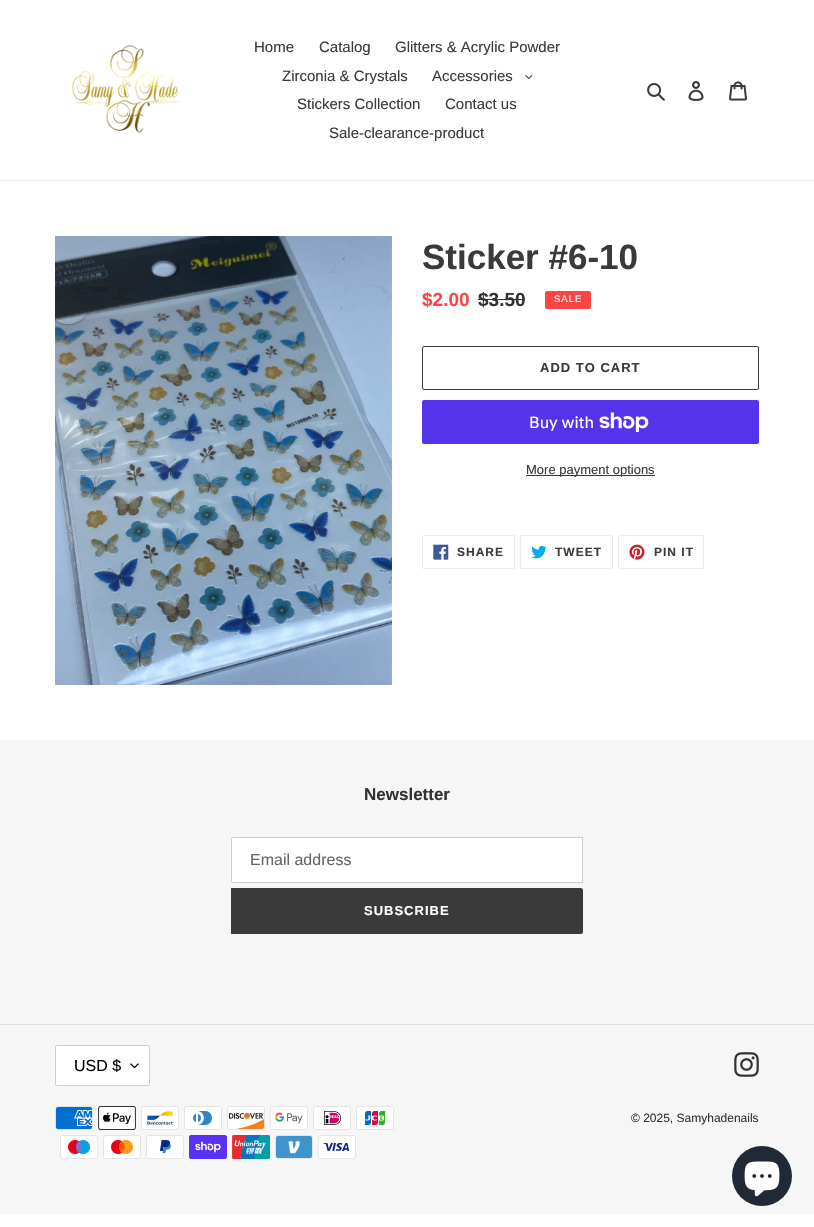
#include "include/core/SkBlurTypes.h"
#include "include/core/SkCanvas.h"
#include "include/core/SkData.h"
#include "include/core/SkFont.h"
#include "include/core/SkFontMgr.h"
#include "include/core/SkImage.h"
#include "include/core/SkMaskFilter.h"
#include "include/core/SkPaint.h"
#include "include/core/SkPathBuilder.h"
#include "include/core/SkTextBlob.h"
#include "include/effects/SkDashPathEffect.h"
#include "include/effects/SkGradientShader.h"
#include "include/utils/SkParsePath.h"

extern sk_sp<SkFontMgr> fontMgr;

void draw(SkCanvas* canvas) {
    SkPaint p;
    p.setAntiAlias(true);
    auto font = [&](const char* family, int weight, float size, bool italic = false) {
        SkFontStyle style(weight, SkFontStyle::kNormal_Width,
            italic ? SkFontStyle::kItalic_Slant : SkFontStyle::kUpright_Slant);
        SkFont result(fontMgr->matchFamilyStyle(family, style), size);
        result.setSubpixel(true);
        return result;
    };
    auto drawTracked = [&](const char* s, float x, float y, const SkFont& font, const SkPaint& ink, float letter, float word) {
        std::vector<SkGlyphID> glyphs(font.countText(s, strlen(s), SkTextEncoding::kUTF8));
        std::vector<float> xs(glyphs.size());
        font.textToGlyphs(s, strlen(s), SkTextEncoding::kUTF8, glyphs);
        font.getXPos(glyphs, xs, x);
        float extra = 0;
        for (size_t i = 0; i < glyphs.size(); i++) {
            xs[i] += extra;
            extra += letter + word * (glyphs[i] == font.unicharToGlyph(' '));
        }
        canvas->drawTextBlob(SkTextBlob::MakeFromPosHGlyphs(glyphs, xs, y, font), 0, 0, ink);
    };
    auto drawPhoto = [&](const char* path, float l, float t, float r, float b) {
        auto image = SkImages::DeferredFromEncodedData(SkData::MakeFromFileName(path));
        canvas->drawImageRect(image, SkRect::MakeLTRB(l, t, r, b), SkSamplingOptions());
    };
    canvas->clear(0xFFFFFFFF);
    p.setColor(0xFFEBEBEB);
    canvas->drawRect(SkRect::MakeLTRB(0, 180, 814, 181), p);
    drawPhoto("media/1.png", 72, 45, 180, 133);
    auto font1 = font("Liberation Sans", 400, 15);
    p.setColor(0xFF3A3A3A);
    {
        const struct { const char* s; float x, y; } items[] = {
            {"Home", 254, 52},
            {"Catalog", 319, 52},
            {"Glitters & Acrylic Powder", 395, 52},
            {"Zirconia & Crystals", 282, 81},
            {"Accessories", 432, 81},
        };
        for (auto [s, x, y] : items) {
            canvas->drawString(s, x, y, font1, p);
        }
    }
    drawPhoto("media/2.png", 525, 75, 532, 79);
    {
        const struct { const char* s; float x, y; } items[] = {
            {"Stickers Collection", 297, 109},
            {"Contact us", 445, 109},
            {"Sale-clearance-product", 329, 138},
        };
        for (auto [s, x, y] : items) {
            canvas->drawString(s, x, y, font1, p);
        }
    }
    drawPhoto("media/3.png", 647, 83, 665, 101);
    drawPhoto("media/4.png", 688, 81, 704, 101);
    drawPhoto("media/5.png", 729, 81, 747, 101);
    drawPhoto("media/6.png", 55, 236, 392, 685);
    auto font2 = font("Liberation Sans", 700, 35);
    canvas->drawString("Sticker #6-10", 422, 269, font2, p);
    auto font3 = font("Liberation Sans", 700, 19);
    p.setColor(0xFFFA4545);
    canvas->drawString("$2.00", 422, 306, font3, p);
    p.setColor(0xFF333232);
    canvas->drawString("$3.50", 478, 306, font3, p);
    canvas->drawRect(SkRect::MakeLTRB(478, 299, 525, 300), p);
    p.setColor(0xFFFA4545);
    canvas->drawRoundRect(SkRect::MakeLTRB(545.5f, 291.5f, 590.5f, 308.5f), 1.5f, 1.5f, p);
    p.setStyle(SkPaint::kStroke_Style);
    p.setStrokeWidth(1);
    canvas->drawRoundRect(SkRect::MakeLTRB(545.5f, 291.5f, 590.5f, 308.5f), 1.5f, 1.5f, p);
    auto font4 = font("Liberation Sans", 400, 9.5f);
    p.setStyle(SkPaint::kFill_Style);
    p.setColor(0xFFFFFFFF);
    drawTracked("SALE", 554, 302, font4, p, 1, 0);
    p.setStyle(SkPaint::kStroke_Style);
    p.setColor(0xFF3A3A3A);
    canvas->drawRoundRect(SkRect::MakeLTRB(422.5f, 346.5f, 758.5f, 389.5f), 1.5f, 1.5f, p);
    auto font5 = font("Liberation Sans", 700, 13);
    p.setStyle(SkPaint::kFill_Style);
    drawTracked("ADD TO CART", 540, 372, font5, p, 1, 0);
    p.setColor(0xFF5433EB);
    canvas->drawRoundRect(SkRect::MakeLTRB(422, 400, 759, 444), 2, 2, p);
    auto font6 = font("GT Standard", 400, 16);
    p.setColor(0xFFFFFFFF);
    canvas->drawString("Buy with", 529, 428, font6, p);
    drawPhoto("media/7.png", 599, 412, 649, 432);
    p.setColor(0xFF3A3A3A);
    canvas->drawRect(SkRect::MakeLTRB(526, 475, 655, 476), p);
    auto font7 = font("Liberation Sans", 400, 13);
    canvas->drawString("More payment options", 526, 474, font7, p);
    p.setStyle(SkPaint::kStroke_Style);
    p.setColor(0xFFEBEBEB);
    canvas->drawRoundRect(SkRect::MakeLTRB(422.5f, 535.5f, 514.5f, 568.5f), 1.5f, 1.5f, p);
    drawPhoto("media/8.png", 433, 544, 449, 560);
    auto font8 = font("Liberation Sans", 700, 12);
    p.setStyle(SkPaint::kFill_Style);
    p.setColor(0xFF3A3A3A);
    drawTracked("SHARE", 457, 556, font8, p, 1, 0);
    p.setStyle(SkPaint::kStroke_Style);
    p.setColor(0xFFEBEBEB);
    canvas->drawRoundRect(SkRect::MakeLTRB(520.5f, 535.5f, 612.5f, 568.5f), 1.5f, 1.5f, p);
    drawPhoto("media/9.png", 531, 545, 547, 559);
    p.setStyle(SkPaint::kFill_Style);
    p.setColor(0xFF3A3A3A);
    drawTracked("TWEET", 555, 556, font8, p, 1, 0);
    p.setStyle(SkPaint::kStroke_Style);
    p.setColor(0xFFEBEBEB);
    canvas->drawRoundRect(SkRect::MakeLTRB(618.5f, 535.5f, 703.5f, 568.5f), 1.5f, 1.5f, p);
    drawPhoto("media/10.png", 629, 544, 645, 560);
    p.setStyle(SkPaint::kFill_Style);
    p.setColor(0xFF3A3A3A);
    drawTracked("PIN IT", 654, 556, font8, p, 1, 0);
    p.setColor(0xFFF6F6F6);
    canvas->drawRect(SkRect::MakeLTRB(0, 740, 814, 1214), p);
    auto font9 = font("Liberation Sans", 700, 17);
    p.setColor(0xFF333232);
    canvas->drawString("Newsletter", 364, 800, font9, p);
    p.setColor(0xFFFFFFFF);
    canvas->drawPath(SkPathBuilder().moveTo(233, 837.5f).lineTo(582.5f, 837.5f).lineTo(582.5f, 882.5f).lineTo(233, 882.5f).cubicTo(232, 882.5f, 231.5f, 882, 231.5f, 881).lineTo(231.5f, 839).cubicTo(231.5f, 838, 232, 837.5f, 233, 837.5f).close().detach(), p);
    p.setStyle(SkPaint::kStroke_Style);
    p.setColor(0xFFCCCCCC);
    canvas->drawPath(SkPathBuilder().moveTo(233, 837.5f).lineTo(582.5f, 837.5f).lineTo(582.5f, 882.5f).lineTo(233, 882.5f).cubicTo(232, 882.5f, 231.5f, 882, 231.5f, 881).lineTo(231.5f, 839).cubicTo(231.5f, 838, 232, 837.5f, 233, 837.5f).close().detach(), p);
    auto font10 = font("Liberation Sans", 400, 16);
    p.setStyle(SkPaint::kFill_Style);
    p.setColor(0xFF666666);
    canvas->drawString("Email address", 250, 865, font10, p);
    p.setColor(0xFF3A3A3A);
    canvas->drawPath(SkPathBuilder().moveTo(231, 888).lineTo(581, 888).cubicTo(582, 888, 583, 889, 583, 890).lineTo(583, 932).cubicTo(583, 933, 582, 934, 581, 934).lineTo(231, 934).close().detach(), p);
    p.setColor(0xFFFFFFFF);
    drawTracked("SUBSCRIBE", 364, 915, font5, p, 1, 0);
    p.setColor(0xFFDDDDDD);
    canvas->drawRect(SkRect::MakeLTRB(0, 1024, 814, 1025), p);
    p.setColor(0xFFFFFFFF);
    canvas->drawRoundRect(SkRect::MakeLTRB(55, 1045, 150, 1086), 2, 2, p);
    drawPhoto("media/11.png", 130, 1063, 139, 1069);
    p.setStyle(SkPaint::kStroke_Style);
    p.setColor(0xFFCCCCCC);
    canvas->drawRoundRect(SkRect::MakeLTRB(55.5f, 1045.5f, 149.5f, 1085.5f), 1.5f, 1.5f, p);
    p.setStyle(SkPaint::kFill_Style);
    p.setColor(0xFF000000);
    canvas->drawString("USD $", 74, 1071, font10, p);
    drawPhoto("media/12.png", 734, 1052, 759, 1077);
    drawPhoto("media/13.png", 55, 1106, 93, 1130);
    drawPhoto("media/14.png", 98, 1106, 136, 1130);
    drawPhoto("media/15.png", 141, 1106, 179, 1130);
    drawPhoto("media/16.png", 184, 1106, 222, 1130);
    drawPhoto("media/17.png", 227, 1106, 265, 1130);
    drawPhoto("media/18.png", 270, 1106, 308, 1130);
    drawPhoto("media/19.png", 313, 1106, 351, 1130);
    drawPhoto("media/20.png", 356, 1106, 394, 1130);
    drawPhoto("media/21.png", 60, 1135, 98, 1159);
    drawPhoto("media/22.png", 103, 1135, 141, 1159);
    drawPhoto("media/23.png", 146, 1135, 184, 1159);
    drawPhoto("media/24.png", 189, 1135, 227, 1159);
    drawPhoto("media/25.png", 232, 1135, 270, 1159);
    drawPhoto("media/26.png", 275, 1135, 313, 1159);
    drawPhoto("media/27.png", 318, 1135, 356, 1159);
    auto font11 = font("Liberation Sans", 400, 12);
    p.setColor(0xFF333232);
    canvas->drawString("© 2025, Samyhadenails", 631, 1122, font11, p);
    p.setColor(0xFF202A36);
    canvas->drawCircle(762, 1176, 30, p);
    drawPhoto("media/28.png", 744, 1161, 780, 1197);
}
